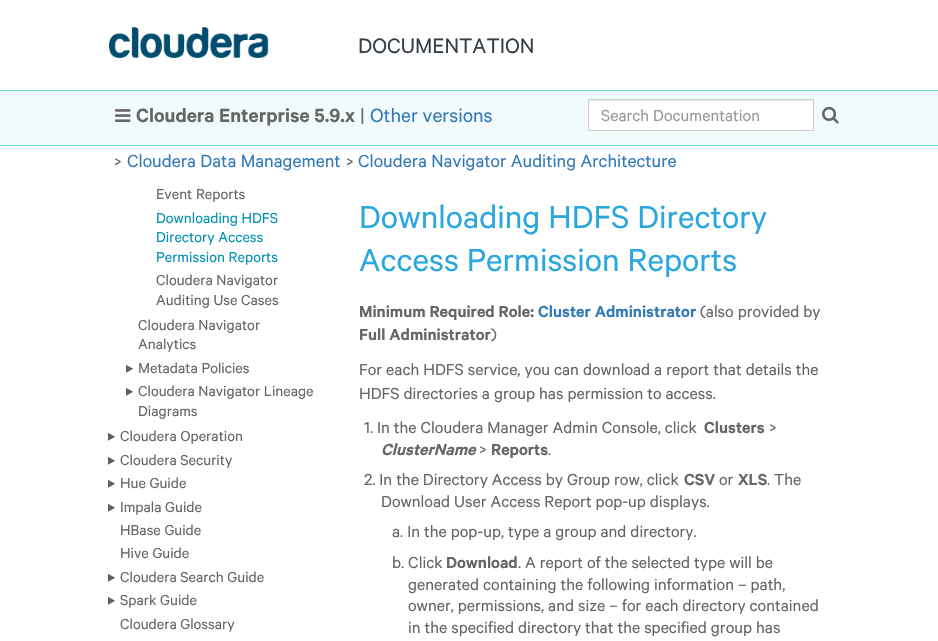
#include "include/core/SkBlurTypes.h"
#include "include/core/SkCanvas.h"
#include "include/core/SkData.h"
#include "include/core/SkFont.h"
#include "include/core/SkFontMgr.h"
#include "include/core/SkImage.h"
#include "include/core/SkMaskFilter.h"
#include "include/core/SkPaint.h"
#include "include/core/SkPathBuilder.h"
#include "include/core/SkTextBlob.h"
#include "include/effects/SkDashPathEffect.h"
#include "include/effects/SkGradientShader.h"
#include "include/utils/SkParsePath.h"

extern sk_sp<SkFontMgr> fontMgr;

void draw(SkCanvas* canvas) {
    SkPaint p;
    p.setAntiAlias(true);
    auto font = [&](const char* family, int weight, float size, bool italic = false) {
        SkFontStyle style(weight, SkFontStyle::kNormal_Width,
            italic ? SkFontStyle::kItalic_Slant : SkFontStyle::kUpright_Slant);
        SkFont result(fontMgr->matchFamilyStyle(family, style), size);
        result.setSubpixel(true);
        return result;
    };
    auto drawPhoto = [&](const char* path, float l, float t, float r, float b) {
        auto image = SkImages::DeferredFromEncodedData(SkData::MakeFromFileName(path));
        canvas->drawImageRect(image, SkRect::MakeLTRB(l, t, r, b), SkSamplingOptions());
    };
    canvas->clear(0xFFFFFFFF);
    drawPhoto("media/1.png", 109, 27, 269, 58);
    auto font1 = font("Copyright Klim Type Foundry", 400, 23.5f);
    p.setColor(0xFF333E47);
    canvas->drawString("DOCUMENTATION", 358, 53, font1, p);
    {
        const struct { float l, t, r, b; SkColor color; } items[] = {
            {0, 91, 938, 145, 0xFFF2FBFB},
            {0, 90, 938, 91, 0xFF6DD3DC},
            {0, 145, 938, 146, 0xFF6DD3DC},
        };
        for (auto [l, t, r, b, color] : items) {
            p.setColor(color);
            canvas->drawRect(SkRect::MakeLTRB(l, t, r, b), p);
        }
    }
    drawPhoto("media/2.png", 115, 109, 131, 122);
    auto font2 = font("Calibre", 600, 21.6f);
    p.setColor(0xFF666666);
    canvas->drawString("Cloudera Enterprise 5.9.x", 136, 122, font2, p);
    auto font3 = font("Copyright Klim Type Foundry", 400, 21.6f);
    canvas->drawString("|", 360, 122, font3, p);
    p.setColor(0xFF337AB7);
    canvas->drawString("Other versions", 370, 122, font3, p);
    p.setColor(0xFFFFFFFF);
    canvas->drawRect(SkRect::MakeLTRB(589, 101, 813, 130), p);
    p.setColor(0xFFECECEC);
    canvas->drawRect(SkRect::MakeLTRB(589, 100, 813, 101), p);
    p.setStyle(SkPaint::kStroke_Style);
    p.setStrokeWidth(1);
    p.setColor(0xFFCCCCCC);
    canvas->drawRect(SkRect::MakeLTRB(588.5f, 99.5f, 813.5f, 130.5f), p);
    auto font4 = font("Copyright Klim Type Foundry", 400, 18);
    p.setStyle(SkPaint::kFill_Style);
    p.setColor(0xFF999999);
    canvas->drawString("Search Documentation", 601, 121, font4, p);
    drawPhoto("media/3.png", 822, 106, 839, 124);
    p.setColor(0xFF666666);
    canvas->drawString(">", 114, 167, font4, p);
    auto font5 = font("Copyright Klim Type Foundry", 400, 19.75f);
    p.setColor(0xFF337AB7);
    canvas->drawString("Cloudera Data Management", 127, 167, font5, p);
    p.setColor(0xFF666666);
    canvas->drawString(">", 346, 167, font4, p);
    p.setColor(0xFF337AB7);
    canvas->drawString("Cloudera Navigator Auditing Architecture", 358, 167, font5, p);
    auto font6 = font("Copyright Klim Type Foundry", 400, 16.25f);
    p.setColor(0xFF666666);
    canvas->drawString("Event Reports", 156, 199, font6, p);
    p.setColor(0xFF0392B2);
    {
        const struct { const char* s; float x, y; } items[] = {
            {"Downloading HDFS", 156, 223},
            {"Directory Access", 156, 242},
            {"Permission Reports", 156, 262},
        };
        for (auto [s, x, y] : items) {
            canvas->drawString(s, x, y, font6, p);
        }
    }
    p.setColor(0xFF666666);
    {
        const struct { const char* s; float x, y; } items[] = {
            {"Cloudera Navigator", 156, 285},
            {"Auditing Use Cases", 156, 305},
            {"Cloudera Navigator", 138, 330},
            {"Analytics", 138, 349},
        };
        for (auto [s, x, y] : items) {
            canvas->drawString(s, x, y, font6, p);
        }
    }
    drawPhoto("media/4.png", 126, 365, 133, 373);
    canvas->drawString("Metadata Policies", 138, 373, font6, p);
    drawPhoto("media/4.png", 126, 388, 133, 396);
    canvas->drawString("Cloudera Navigator Lineage", 138, 396, font6, p);
    canvas->drawString("Diagrams", 138, 416, font6, p);
    drawPhoto("media/4.png", 108, 433, 115, 441);
    canvas->drawString("Cloudera Operation", 120, 441, font6, p);
    drawPhoto("media/4.png", 108, 457, 115, 465);
    canvas->drawString("Cloudera Security", 120, 465, font6, p);
    drawPhoto("media/4.png", 108, 480, 115, 488);
    canvas->drawString("Hue Guide", 120, 488, font6, p);
    drawPhoto("media/4.png", 108, 504, 115, 512);
    {
        const struct { const char* s; float x, y; } items[] = {
            {"Impala Guide", 120, 512},
            {"HBase Guide", 120, 535},
            {"Hive Guide", 120, 558},
        };
        for (auto [s, x, y] : items) {
            canvas->drawString(s, x, y, font6, p);
        }
    }
    drawPhoto("media/4.png", 108, 574, 115, 582);
    canvas->drawString("Cloudera Search Guide", 120, 582, font6, p);
    drawPhoto("media/4.png", 108, 597, 115, 605);
    canvas->drawString("Spark Guide", 120, 605, font6, p);
    canvas->drawString("Cloudera Glossary", 120, 629, font6, p);
    auto font7 = font("Copyright Klim Type Foundry", 400, 36);
    p.setColor(0xFF29A7DE);
    canvas->drawString("Downloading HDFS Directory", 359, 228, font7, p);
    canvas->drawString("Access Permission Reports", 359, 271, font7, p);
    auto font8 = font("Calibre", 600, 18);
    p.setColor(0xFF666666);
    canvas->drawString("Minimum Required Role:", 359, 317, font8, p);
    p.setColor(0xFF337AB7);
    canvas->drawString("Cluster Administrator", 538, 317, font8, p);
    p.setColor(0xFF666666);
    canvas->drawString("(also provided by", 700, 317, font4, p);
    canvas->drawString("Full Administrator", 359, 340, font8, p);
    {
        const struct { const char* s; float x, y; } items[] = {
            {")", 491, 340},
            {"For each HDFS service, you can download a report that details the", 359, 375},
            {"HDFS directories a group has permission to access.", 359, 399},
            {"1. In the Cloudera Manager Admin Console, click", 364, 433},
        };
        for (auto [s, x, y] : items) {
            canvas->drawString(s, x, y, font4, p);
        }
    }
    canvas->drawString("Clusters", 704, 433, font8, p);
    canvas->drawString(">", 769, 433, font4, p);
    auto font9 = font("Calibre", 600, 18, true);
    canvas->drawString("ClusterName", 381, 455, font9, p);
    canvas->drawString(">", 479, 455, font4, p);
    canvas->drawString("Reports", 491, 455, font8, p);
    canvas->drawString(".", 548, 455, font4, p);
    canvas->drawString("2. In the Directory Access by Group row, click", 364, 485, font4, p);
    canvas->drawString("CSV", 684, 485, font8, p);
    canvas->drawString("or", 719, 485, font4, p);
    canvas->drawString("XLS", 738, 485, font8, p);
    {
        const struct { const char* s; float x, y; } items[] = {
            {". The", 767, 485},
            {"Download User Access Report pop-up displays.", 381, 507},
            {"a. In the pop-up, type a group and directory.", 392, 537},
            {"b. Click", 392, 568},
        };
        for (auto [s, x, y] : items) {
            canvas->drawString(s, x, y, font4, p);
        }
    }
    canvas->drawString("Download", 446, 568, font8, p);
    {
        const struct { const char* s; float x, y; } items[] = {
            {". A report of the selected type will be", 518, 568},
            {"generated containing the following information – path,", 408, 590},
            {"owner, permissions, and size – for each directory contained", 408, 611},
            {"in the specified directory that the specified group has", 408, 633},
        };
        for (auto [s, x, y] : items) {
            canvas->drawString(s, x, y, font4, p);
        }
    }
}
